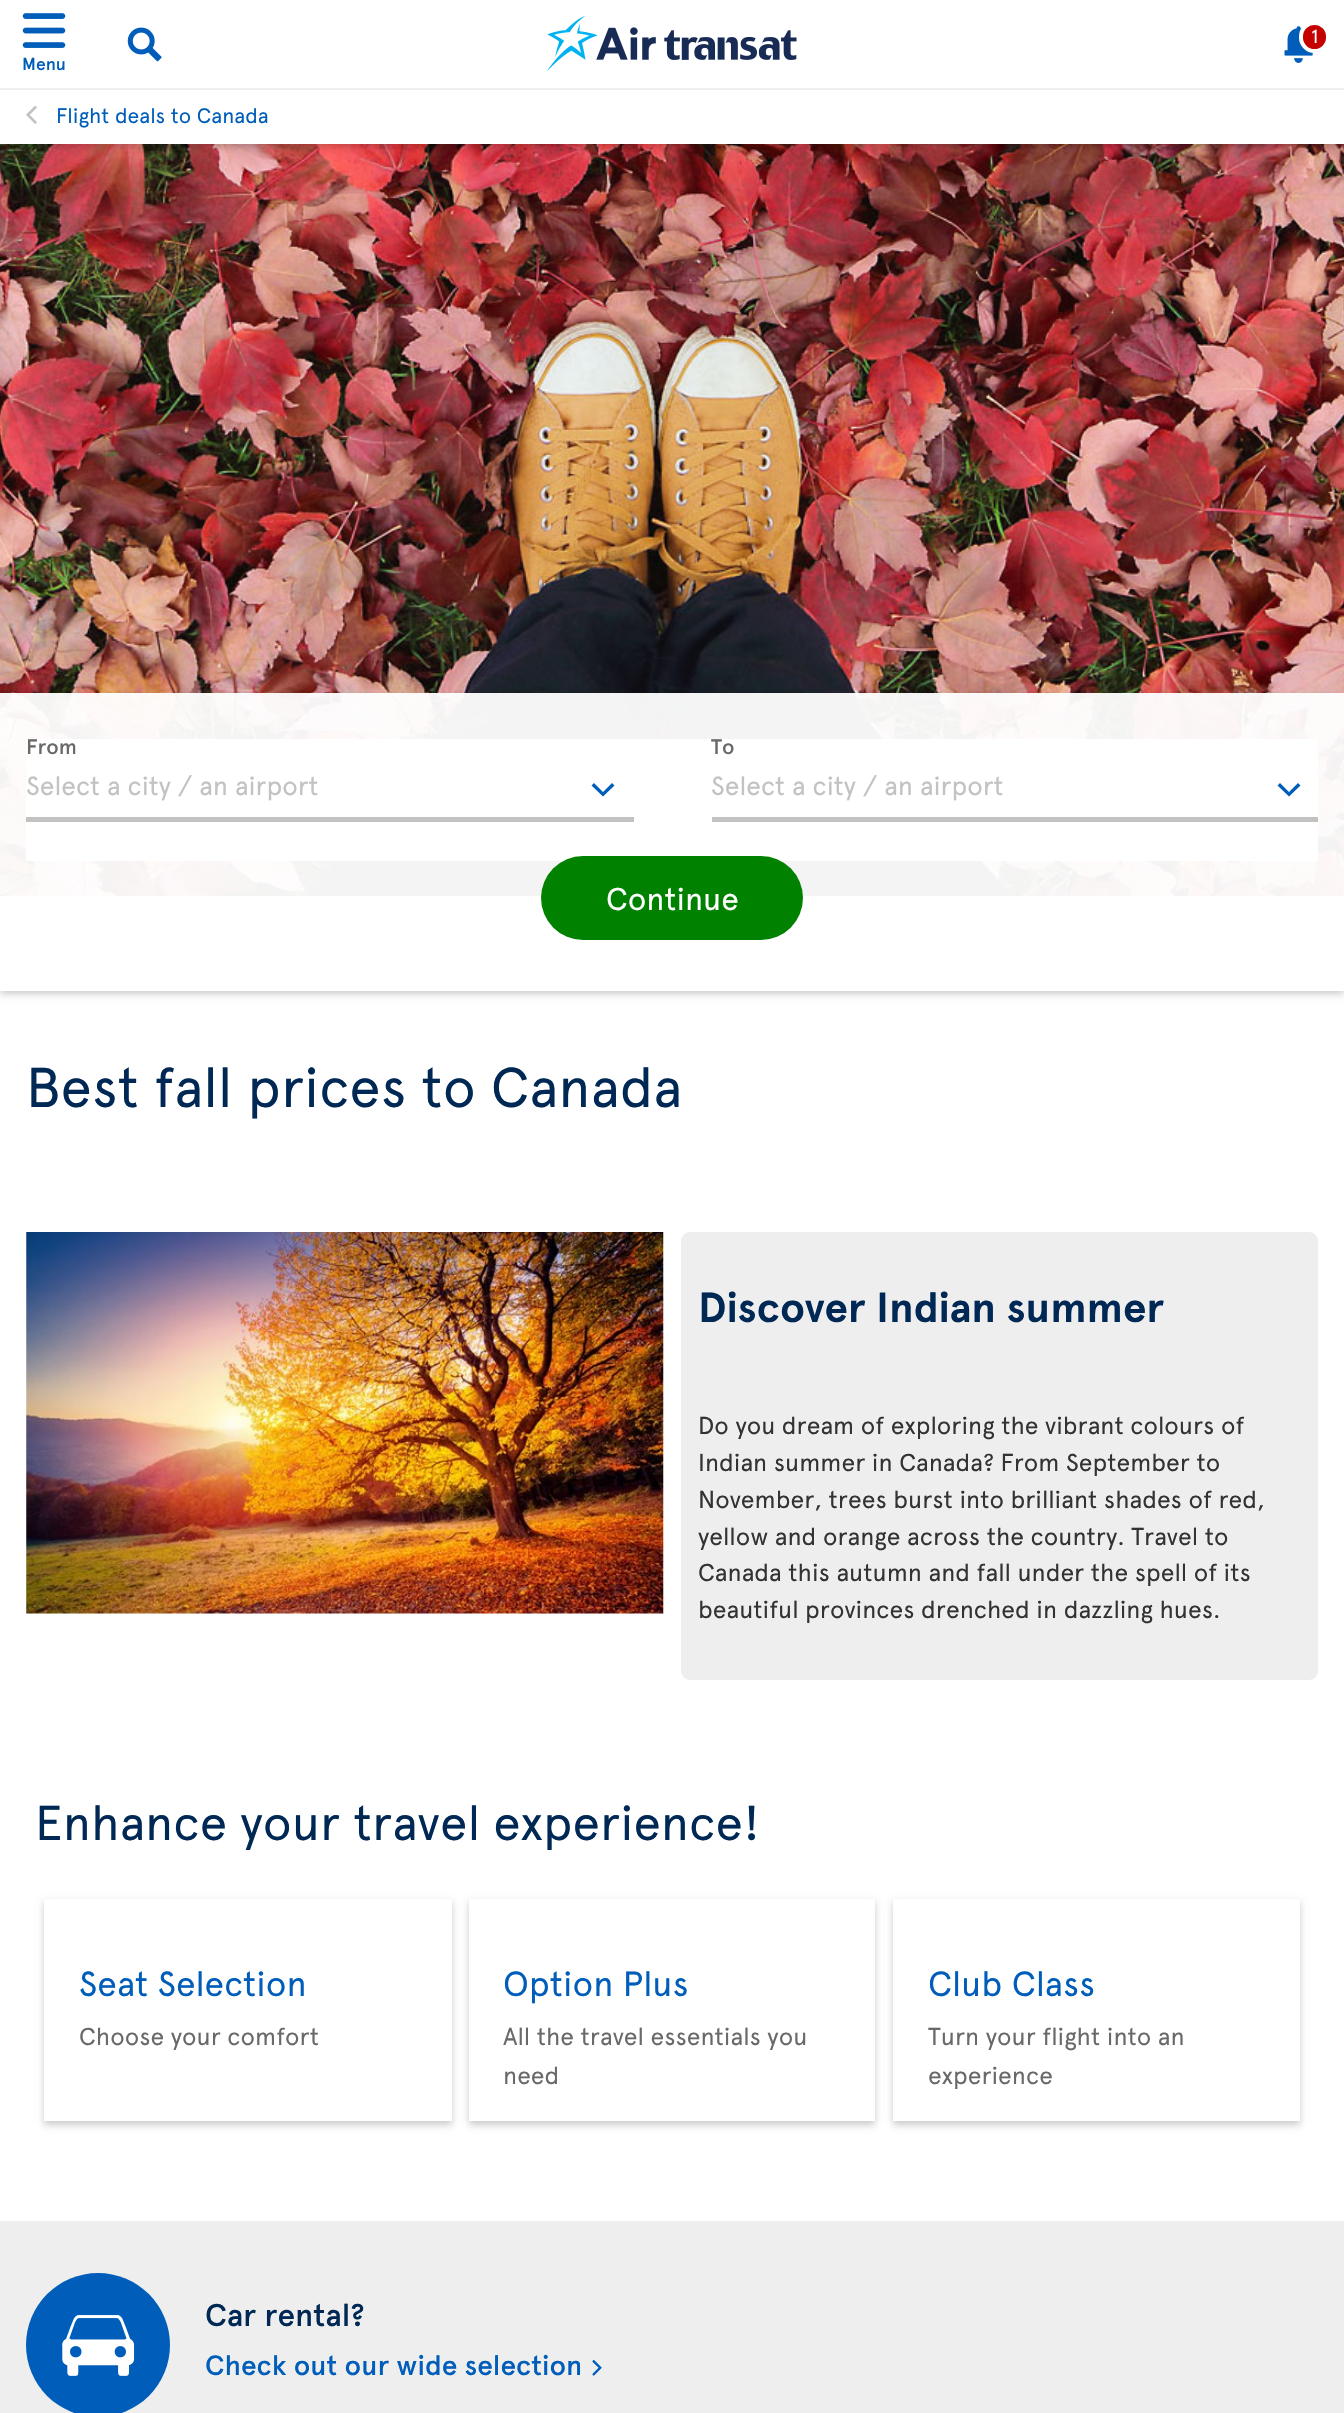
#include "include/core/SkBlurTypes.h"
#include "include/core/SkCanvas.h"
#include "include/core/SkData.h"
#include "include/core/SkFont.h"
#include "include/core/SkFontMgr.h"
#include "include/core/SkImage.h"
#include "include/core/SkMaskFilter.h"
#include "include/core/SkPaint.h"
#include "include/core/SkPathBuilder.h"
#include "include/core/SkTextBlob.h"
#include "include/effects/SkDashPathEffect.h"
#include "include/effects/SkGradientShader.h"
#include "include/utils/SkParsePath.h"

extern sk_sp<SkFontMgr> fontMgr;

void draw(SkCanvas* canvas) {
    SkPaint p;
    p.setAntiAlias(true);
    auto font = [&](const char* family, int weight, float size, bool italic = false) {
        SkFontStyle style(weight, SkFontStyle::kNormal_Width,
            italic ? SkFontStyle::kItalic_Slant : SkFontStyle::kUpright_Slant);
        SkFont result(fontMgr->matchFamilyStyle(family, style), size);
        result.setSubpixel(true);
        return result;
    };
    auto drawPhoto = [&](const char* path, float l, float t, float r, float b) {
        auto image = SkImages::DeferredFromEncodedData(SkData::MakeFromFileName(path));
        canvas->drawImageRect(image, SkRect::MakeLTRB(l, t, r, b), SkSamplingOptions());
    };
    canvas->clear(0xFFFFFFFF);
    drawPhoto("media/5.png", 0, 144, 1344, 896);
    p.setColor(0x33000000);
    p.setMaskFilter(SkMaskFilter::MakeBlur(kNormal_SkBlurStyle, 3.5f));
    canvas->drawRect(SkRect::MakeLTRB(0, 4, 1344, 147), p);
    p.setMaskFilter(nullptr);
    p.setColor(0xFFFFFFFF);
    canvas->drawRect(SkRect::MakeLTRB(0, 0, 1344, 144), p);
    drawPhoto("media/1.png", 547, 16, 797, 72);
    drawPhoto("media/2.png", 1284, 26, 1313, 63);
    p.setColor(0xFFC50000);
    canvas->drawRoundRect(SkRect::MakeLTRB(1301, 23, 1328, 51), 13.5f, 13.5f, p);
    p.setStyle(SkPaint::kStroke_Style);
    p.setStrokeWidth(4);
    p.setColor(0xFFFFFFFF);
    canvas->drawRoundRect(SkRect::MakeLTRB(1301, 23, 1328, 51), 13.5f, 13.5f, p);
    auto font1 = font("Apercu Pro", 400, 19);
    p.setStyle(SkPaint::kFill_Style);
    canvas->drawString("1", 1311, 43, font1, p);
    drawPhoto("media/3.png", 127, 27, 162, 62);
    drawPhoto("media/4.png", 22, 13, 66, 48);
    auto font2 = font("Apercu Pro", 500, 17.5f);
    p.setColor(0xFF005EBA);
    canvas->drawString("Menu", 22, 70, font2, p);
    p.setColor(0xFFEEEEEE);
    canvas->drawRect(SkRect::MakeLTRB(0, 88, 1344, 90), p);
    auto font3 = font("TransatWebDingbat", 400, 28);
    p.setColor(0xFFC2C2C2);
    canvas->drawString("<", 26, 123, font3, p);
    auto font4 = font("Apercu Pro", 400, 21);
    p.setColor(0xFF005EBA);
    canvas->drawString("Flight deals to Canada", 56, 123, font4, p);
    canvas->save();
    canvas->clipPath(SkPathBuilder(SkPathFillType::kEvenOdd).moveTo(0, 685).lineTo(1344, 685).lineTo(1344, 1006).lineTo(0, 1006).close().moveTo(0, 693).lineTo(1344, 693).lineTo(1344, 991).lineTo(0, 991).close().detach(), true);
    p.setColor(0x33000000);
    p.setMaskFilter(SkMaskFilter::MakeBlur(kNormal_SkBlurStyle, 3.5f));
    canvas->drawRect(SkRect::MakeLTRB(0, 697, 1344, 994), p);
    p.setMaskFilter(nullptr);
    canvas->restore();
    p.setColor(0xF2FFFFFF);
    canvas->drawRect(SkRect::MakeLTRB(0, 693, 1344, 991), p);
    p.setColor(0xFFFFFFFF);
    canvas->drawRect(SkRect::MakeLTRB(26, 739, 1318, 861), p);
    auto font5 = font("Apercu Pro", 500, 21);
    p.setColor(0xFF696969);
    canvas->drawString("From", 26, 754, font5, p);
    p.setColor(0xFFC2C2C2);
    canvas->drawRect(SkRect::MakeLTRB(26, 817, 634, 822), p);
    auto font6 = font("Apercu Pro", 400, 26.25f);
    canvas->drawString("Select a city / an airport", 26, 795, font6, p);
    p.setColor(0xFF005EBA);
    canvas->drawPath(SkPathBuilder().moveTo(591.5f, 785.5f).lineTo(603, 796.5f).lineTo(614.5f, 785.5f).lineTo(612, 783).lineTo(603, 792).lineTo(594, 783).close().detach(), p);
    p.setColor(0xFF696969);
    canvas->drawString("To", 711, 754, font5, p);
    p.setColor(0xFFC2C2C2);
    canvas->drawRect(SkRect::MakeLTRB(712, 817, 1318, 822), p);
    canvas->drawString("Select a city / an airport", 711, 795, font6, p);
    p.setColor(0xFF005EBA);
    canvas->drawPath(SkPathBuilder().moveTo(1277.5f, 785.5f).lineTo(1289, 796.5f).lineTo(1300.5f, 785.5f).lineTo(1298, 783).lineTo(1289, 792).lineTo(1280, 783).close().detach(), p);
    p.setColor(0xFF008200);
    canvas->drawRoundRect(SkRect::MakeLTRB(541, 856, 803, 940), 42, 42, p);
    auto font7 = font("Apercu Pro", 400, 31.5f);
    p.setColor(0xFFFFFFFF);
    canvas->drawString("Continue", 606, 910, font7, p);
    auto font8 = font("Apercu Pro", 400, 56);
    p.setColor(0xFF002855);
    canvas->drawString("Best fall prices to Canada", 26, 1107, font8, p);
    drawPhoto("media/6.png", 26, 1232, 664, 1614);
    p.setColor(0xFFEEEEEE);
    canvas->drawRoundRect(SkRect::MakeLTRB(681, 1232, 1318, 1680), 9, 9, p);
    auto font9 = font("Apercu Pro", 700, 42);
    p.setColor(0xFF002855);
    canvas->drawString("Discover Indian summer", 698, 1322, font9, p);
    auto font10 = font("Apercu Pro", 400, 24.5f);
    p.setColor(0xFF333333);
    {
        const struct { const char* s; float x, y; } items[] = {
            {"Do you dream of exploring the vibrant colours of", 698, 1434},
            {"Indian summer in Canada? From September to", 698, 1471},
            {"November, trees burst into brilliant shades of red,", 698, 1508},
            {"yellow and orange across the country. Travel to", 698, 1545},
            {"Canada this autumn and fall under the spell of its", 698, 1581},
            {"beautiful provinces drenched in dazzling hues.", 698, 1618},
        };
        for (auto [s, x, y] : items) {
            canvas->drawString(s, x, y, font10, p);
        }
    }
    auto font11 = font("Apercu Pro", 400, 49);
    p.setColor(0xFF002855);
    canvas->drawString("Enhance your travel experience!", 35, 1840, font11, p);
    canvas->save();
    canvas->clipPath(SkPathBuilder(SkPathFillType::kEvenOdd).moveTo(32, 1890).lineTo(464, 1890).lineTo(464, 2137).lineTo(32, 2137).close().moveTo(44, 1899).lineTo(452, 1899).lineTo(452, 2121).lineTo(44, 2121).close().detach(), true);
    p.setColor(0x33000000);
    p.setMaskFilter(SkMaskFilter::MakeBlur(kNormal_SkBlurStyle, 3.5f));
    canvas->drawRect(SkRect::MakeLTRB(44, 1902, 452, 2125), p);
    p.setMaskFilter(nullptr);
    canvas->restore();
    auto font12 = font("Apercu Pro", 400, 35);
    p.setColor(0xFF005EBA);
    canvas->drawString("Seat Selection", 79, 1996, font12, p);
    p.setColor(0xFF696969);
    canvas->drawString("Choose your comfort", 79, 2045, font10, p);
    canvas->save();
    canvas->clipPath(SkPathBuilder(SkPathFillType::kEvenOdd).moveTo(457, 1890).lineTo(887, 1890).lineTo(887, 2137).lineTo(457, 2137).close().moveTo(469, 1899).lineTo(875, 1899).lineTo(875, 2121).lineTo(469, 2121).close().detach(), true);
    p.setColor(0x33000000);
    p.setMaskFilter(SkMaskFilter::MakeBlur(kNormal_SkBlurStyle, 3.5f));
    canvas->drawRect(SkRect::MakeLTRB(469, 1902, 875, 2125), p);
    p.setMaskFilter(nullptr);
    canvas->restore();
    p.setColor(0xFF005EBA);
    canvas->drawString("Option Plus", 503, 1996, font12, p);
    p.setColor(0xFF696969);
    canvas->drawString("All the travel essentials you", 503, 2045, font10, p);
    canvas->drawString("need", 503, 2084, font10, p);
    canvas->save();
    canvas->clipPath(SkPathBuilder(SkPathFillType::kEvenOdd).moveTo(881, 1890).lineTo(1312, 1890).lineTo(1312, 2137).lineTo(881, 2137).close().moveTo(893, 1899).lineTo(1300, 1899).lineTo(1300, 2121).lineTo(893, 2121).close().detach(), true);
    p.setColor(0x33000000);
    p.setMaskFilter(SkMaskFilter::MakeBlur(kNormal_SkBlurStyle, 3.5f));
    canvas->drawRect(SkRect::MakeLTRB(893, 1902, 1300, 2125), p);
    p.setMaskFilter(nullptr);
    canvas->restore();
    p.setColor(0xFF005EBA);
    canvas->drawString("Club Class", 928, 1996, font12, p);
    p.setColor(0xFF696969);
    canvas->drawString("Turn your flight into an", 928, 2045, font10, p);
    canvas->drawString("experience", 928, 2084, font10, p);
    p.setColor(0xFFEEEEEE);
    canvas->drawRect(SkRect::MakeLTRB(0, 2221, 1344, 2413), p);
    p.setColor(0xFF005EBA);
    canvas->drawCircle(98, 2345, 72, p);
    drawPhoto("media/7.png", 62, 2315, 135, 2376);
    auto font13 = font("Apercu Pro", 500, 31.5f);
    p.setColor(0xFF002855);
    canvas->drawString("Car rental?", 205, 2326, font13, p);
    auto font14 = font("Apercu Pro", 500, 28);
    p.setColor(0xFF005EBA);
    canvas->drawString("Check out our wide selection", 205, 2375, font14, p);
    auto font15 = font("TransatWebDingbat", 400, 24.5f);
    canvas->drawString(">", 591, 2375, font15, p);
}
